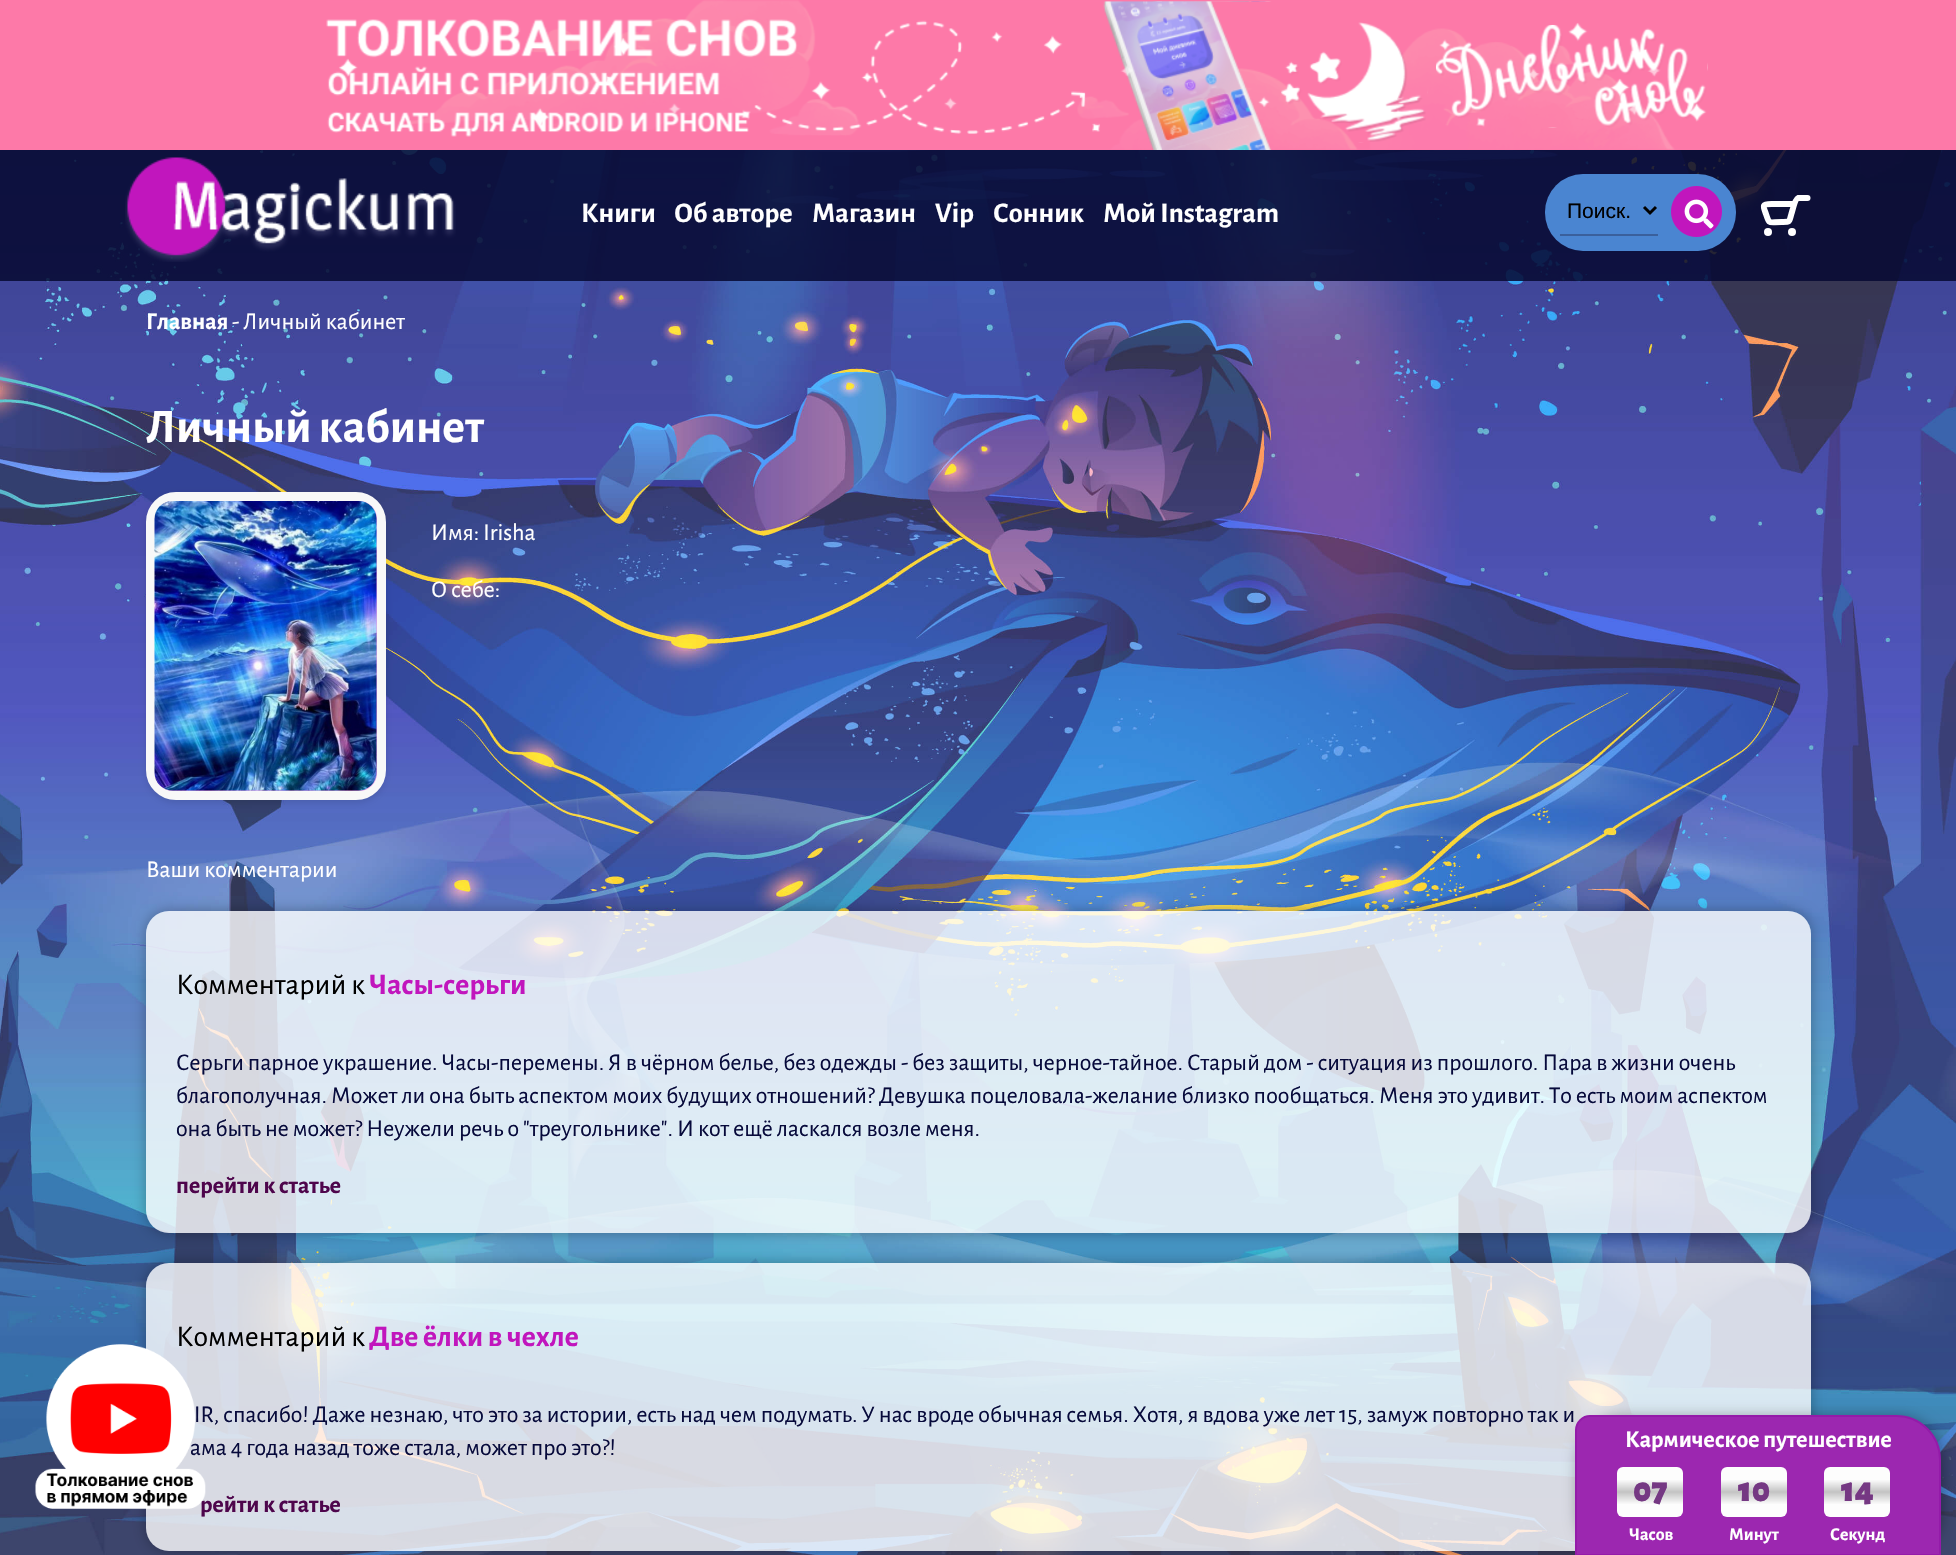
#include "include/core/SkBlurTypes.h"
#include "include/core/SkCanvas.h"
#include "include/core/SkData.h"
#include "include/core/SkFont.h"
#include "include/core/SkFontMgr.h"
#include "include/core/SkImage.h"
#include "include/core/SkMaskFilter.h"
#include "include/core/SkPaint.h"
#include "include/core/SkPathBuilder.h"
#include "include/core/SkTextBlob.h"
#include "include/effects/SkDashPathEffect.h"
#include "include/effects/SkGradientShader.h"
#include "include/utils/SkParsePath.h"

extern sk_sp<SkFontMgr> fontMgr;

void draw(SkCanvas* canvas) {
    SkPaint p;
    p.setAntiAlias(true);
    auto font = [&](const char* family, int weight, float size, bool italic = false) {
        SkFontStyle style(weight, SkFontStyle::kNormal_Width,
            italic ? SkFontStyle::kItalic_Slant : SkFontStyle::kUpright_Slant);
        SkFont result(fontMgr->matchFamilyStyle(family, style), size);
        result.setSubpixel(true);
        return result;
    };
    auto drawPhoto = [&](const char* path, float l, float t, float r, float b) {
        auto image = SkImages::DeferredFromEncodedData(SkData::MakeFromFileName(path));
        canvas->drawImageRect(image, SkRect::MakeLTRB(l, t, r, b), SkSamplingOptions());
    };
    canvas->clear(0xFFFFFFFF);
    p.setColor(0xFFFD79A8);
    canvas->drawRect(SkRect::MakeLTRB(0, 0, 1956, 150), p);
    drawPhoto("media/1.png", 326, 0, 1708, 150);
    drawPhoto("media/2.png", 0, 150, 1956, 1555);
    p.setColor(0xDE060932);
    canvas->drawRect(SkRect::MakeLTRB(0, 150, 1956, 281), p);
    drawPhoto("media/3.png", 125, 157, 456, 262);
    auto font1 = font("Alegreya Sans", 700, 28.5f);
    p.setColor(0xFFFFFFFF);
    {
        const struct { const char* s; float x, y; } items[] = {
            {"Книги", 581, 222},
            {"Об авторе", 674, 222},
            {"Магазин", 812, 222},
            {"Vip", 935, 222},
            {"Сонник", 993, 222},
            {"Мой Instagram", 1103, 222},
        };
        for (auto [s, x, y] : items) {
            canvas->drawString(s, x, y, font1, p);
        }
    }
    p.setColor(0xFF4A85D1);
    canvas->drawRoundRect(SkRect::MakeLTRB(1545, 174, 1736, 251), 38, 38, p);
    p.setColor(0xFF3A609C);
    canvas->drawRect(SkRect::MakeLTRB(1560, 234, 1658, 236), p);
    auto font2 = font("Liberation Sans", 400, 21);
    p.setColor(0xFF000000);
    canvas->drawString("Поиск.", 1567, 218, font2, p);
    p.setStyle(SkPaint::kStroke_Style);
    p.setStrokeWidth(3);
    canvas->drawPath(SkPathBuilder().moveTo(1644, 207).lineTo(1650, 213).lineTo(1656, 207).detach(), p);
    drawPhoto("media/4.png", 1671, 186, 1722, 237);
    p.setStrokeWidth(6);
    p.setColor(0xFFFFFFFF);
    canvas->drawPath(SkPathBuilder().moveTo(1795, 204).lineTo(1771.5f, 204).cubicTo(1761.5f, 204, 1763, 206, 1766, 214).cubicTo(1769.5f, 225, 1768.5f, 222, 1781.5f, 222).cubicTo(1790.5f, 222, 1789, 222.5f, 1791.5f, 213.5f).cubicTo(1792.5f, 210.5f, 1795, 199, 1798, 198).lineTo(1807.5f, 198).detach(), p);
    p.setStyle(SkPaint::kFill_Style);
    canvas->drawCircle(1807.5f, 198, 3, p);
    canvas->drawCircle(1768, 232, 4, p);
    canvas->drawCircle(1792, 232, 4, p);
    auto font3 = font("Alegreya Sans", 700, 24);
    canvas->drawString("Главная", 146, 329, font3, p);
    auto font4 = font("Alegreya Sans", 400, 24);
    canvas->drawString("- Личный кабинет", 232, 329, font4, p);
    canvas->save();
    canvas->clipPath(SkPathBuilder(SkPathFillType::kEvenOdd).moveTo(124, 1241).lineTo(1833, 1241).lineTo(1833, 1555).lineTo(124, 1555).close().moveTo(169, 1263).lineTo(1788, 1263).cubicTo(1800.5f, 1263, 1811, 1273.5f, 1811, 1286).lineTo(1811, 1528).cubicTo(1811, 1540.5f, 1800.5f, 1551, 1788, 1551).lineTo(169, 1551).cubicTo(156.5f, 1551, 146, 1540.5f, 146, 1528).lineTo(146, 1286).cubicTo(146, 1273.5f, 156.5f, 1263, 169, 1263).close().detach(), true);
    p.setColor(0x4D000000);
    p.setMaskFilter(SkMaskFilter::MakeBlur(kNormal_SkBlurStyle, 7));
    canvas->drawRoundRect(SkRect::MakeLTRB(146, 1263, 1811, 1551), 23, 23, p);
    p.setMaskFilter(nullptr);
    canvas->restore();
    p.setColor(0xCCFFFFFF);
    canvas->drawRoundRect(SkRect::MakeLTRB(146, 1263, 1811, 1551), 23, 23, p);
    auto font5 = font("Alegreya Sans", 400, 30);
    p.setColor(0xFF000000);
    canvas->drawString("Комментарий к", 176, 1346, font5, p);
    p.setColor(0xFF070A3B);
    canvas->drawString("IR, спасибо! Даже незнаю, что это за истории, есть над чем подумать. У нас вроде обычная семья. Хотя, я вдова уже лет 15, замуж повторно так и", 194, 1422, font4, p);
    canvas->drawString("ама 4 года назад тоже стала, может про это?!", 190, 1455, font4, p);
    p.setColor(0xFF4E054C);
    canvas->drawString("рейти к статье", 200, 1512, font3, p);
    drawPhoto("media/5.png", 35, 1344, 206, 1509);
    auto font6 = font("Alegreya Sans", 700, 48);
    p.setColor(0xFFFFFFFF);
    canvas->drawString("Личный кабинет", 146, 442, font6, p);
    p.setColor(0x1A000000);
    p.setMaskFilter(SkMaskFilter::MakeBlur(kNormal_SkBlurStyle, 3));
    canvas->drawRoundRect(SkRect::MakeLTRB(146, 495, 386, 803), 30, 30, p);
    p.setMaskFilter(nullptr);
    p.setStyle(SkPaint::kStroke_Style);
    p.setStrokeWidth(9);
    p.setColor(0xFFF8F8F8);
    canvas->drawRoundRect(SkRect::MakeLTRB(150.5f, 496.5f, 381.5f, 795.5f), 25.5f, 25.5f, p);
    p.setStyle(SkPaint::kFill_Style);
    p.setColor(0xFFE69CE5);
    canvas->drawRoundRect(SkRect::MakeLTRB(155, 501, 377, 791), 18, 18, p);
    drawPhoto("media/6.png", 154, 501, 377, 791);
    p.setColor(0xFFFFFFFF);
    {
        const struct { const char* s; float x, y; } items[] = {
            {"Имя: Irisha", 431, 540},
            {"О себе:", 431, 597},
            {"Ваши комментарии", 146, 877},
        };
        for (auto [s, x, y] : items) {
            canvas->drawString(s, x, y, font4, p);
        }
    }
    canvas->save();
    canvas->clipPath(SkPathBuilder(SkPathFillType::kEvenOdd).moveTo(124, 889).lineTo(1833, 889).lineTo(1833, 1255).lineTo(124, 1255).close().moveTo(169, 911).lineTo(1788, 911).cubicTo(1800.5f, 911, 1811, 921.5f, 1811, 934).lineTo(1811, 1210).cubicTo(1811, 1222.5f, 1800.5f, 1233, 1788, 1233).lineTo(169, 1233).cubicTo(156.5f, 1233, 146, 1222.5f, 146, 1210).lineTo(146, 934).cubicTo(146, 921.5f, 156.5f, 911, 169, 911).close().detach(), true);
    p.setColor(0x4D000000);
    p.setMaskFilter(SkMaskFilter::MakeBlur(kNormal_SkBlurStyle, 7));
    canvas->drawRoundRect(SkRect::MakeLTRB(146, 911, 1811, 1233), 23, 23, p);
    p.setMaskFilter(nullptr);
    canvas->restore();
    p.setColor(0xCCFFFFFF);
    canvas->drawRoundRect(SkRect::MakeLTRB(146, 911, 1811, 1233), 23, 23, p);
    p.setColor(0xFF000000);
    canvas->drawString("Комментарий к", 176, 994, font5, p);
    auto font7 = font("Alegreya Sans", 700, 30);
    p.setColor(0xFFC116BD);
    canvas->drawString("Часы-серьги", 369, 994, font7, p);
    p.setColor(0xFF070A3B);
    {
        const struct { const char* s; float x, y; } items[] = {
            {"Серьги парное украшение. Часы-перемены. Я в чёрном белье, без одежды - без защиты, черное-тайное. Старый дом - ситуация из прошлого. Пара в жизни очень", 176, 1070},
            {"благополучная. Может ли она быть аспектом моих будущих отношений? Девушка поцеловала-желание близко пообщаться. Меня это удивит. То есть моим аспектом", 176, 1103},
            {"она быть не может? Неужели речь о \"треугольнике\". И кот ещё ласкался возле меня.", 176, 1136},
        };
        for (auto [s, x, y] : items) {
            canvas->drawString(s, x, y, font4, p);
        }
    }
    p.setColor(0xFF4E054C);
    canvas->drawString("перейти к статье", 176, 1193, font3, p);
    p.setColor(0xFFC116BD);
    canvas->drawString("Две ёлки в чехле", 369, 1346, font7, p);
    p.setColor(0x4F000000);
    p.setMaskFilter(SkMaskFilter::MakeBlur(kNormal_SkBlurStyle, 7));
    canvas->drawRoundRect(SkRect::MakeLTRB(1577, 1416, 1943, 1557), 45, 45, p);
    p.setMaskFilter(nullptr);
    p.setColor(0xFF9C27B0);
    canvas->drawPath(SkPathBuilder().moveTo(1590, 1416).lineTo(1896, 1416).cubicTo(1920.5f, 1416, 1940, 1435.5f, 1940, 1460).lineTo(1940, 1555).lineTo(1576, 1555).lineTo(1576, 1430).cubicTo(1576, 1422.5f, 1582.5f, 1416, 1590, 1416).close().detach(), p);
    p.setStyle(SkPaint::kStroke_Style);
    p.setStrokeWidth(2);
    p.setColor(0xFF941BA9);
    canvas->drawPath(SkPathBuilder().moveTo(1590, 1416).lineTo(1896, 1416).cubicTo(1920.5f, 1416, 1940, 1435.5f, 1940, 1460).lineTo(1940, 1555).lineTo(1576, 1555).lineTo(1576, 1430).cubicTo(1576, 1422.5f, 1582.5f, 1416, 1590, 1416).close().detach(), p);
    p.setStyle(SkPaint::kFill_Style);
    p.setColor(0xFFFFFFFF);
    canvas->drawString("Кармическое путешествие", 1625, 1447, font3, p);
    {
        const SkColor colors[] = {0xFFFDFDFD, 0xFFFDFDFD, 0xFFC3C3C3, 0xFFFDFDFD, 0xFFFDFDFD};
        const float stops[] = {0, 0.25f, 0.5f, 0.75f, 1};
        const SkPoint ends[] = {{1650, 1467}, {1650, 1517}};
        p.setShader(SkGradientShader::MakeLinear(ends, colors, stops, 5, SkTileMode::kClamp));
        p.setAlpha(255);
    }
    canvas->drawRoundRect(SkRect::MakeLTRB(1617, 1467, 1683, 1517), 6, 6, p);
    auto font8 = font("Alegreya Sans", 900, 36);
    p.setShader(nullptr);
    p.setColor(0xFF753883);
    canvas->drawString("07", 1633, 1501, font8, p);
    auto font9 = font("Alegreya Sans", 700, 18);
    p.setColor(0xFFFFFFFF);
    canvas->drawString("Часов", 1629, 1540, font9, p);
    {
        const SkColor colors[] = {0xFFFDFDFD, 0xFFFDFDFD, 0xFFC3C3C3, 0xFFFDFDFD, 0xFFFDFDFD};
        const float stops[] = {0, 0.25f, 0.5f, 0.75f, 1};
        const SkPoint ends[] = {{1754, 1467}, {1754, 1517}};
        p.setShader(SkGradientShader::MakeLinear(ends, colors, stops, 5, SkTileMode::kClamp));
        p.setAlpha(255);
    }
    canvas->drawRoundRect(SkRect::MakeLTRB(1721, 1467, 1787, 1517), 6, 6, p);
    p.setShader(nullptr);
    p.setColor(0xFF753883);
    canvas->drawString("10", 1738, 1501, font8, p);
    p.setColor(0xFFFFFFFF);
    canvas->drawString("Минут", 1729, 1540, font9, p);
    {
        const SkColor colors[] = {0xFFFDFDFD, 0xFFFDFDFD, 0xFFC3C3C3, 0xFFFDFDFD, 0xFFFDFDFD};
        const float stops[] = {0, 0.25f, 0.5f, 0.75f, 1};
        const SkPoint ends[] = {{1857, 1467}, {1857, 1517}};
        p.setShader(SkGradientShader::MakeLinear(ends, colors, stops, 5, SkTileMode::kClamp));
        p.setAlpha(255);
    }
    canvas->drawRoundRect(SkRect::MakeLTRB(1824, 1467, 1890, 1517), 6, 6, p);
    p.setShader(nullptr);
    p.setColor(0xFF753883);
    canvas->drawString("14", 1841, 1501, font8, p);
    p.setColor(0xFFFFFFFF);
    canvas->drawString("Секунд", 1830, 1540, font9, p);
}
